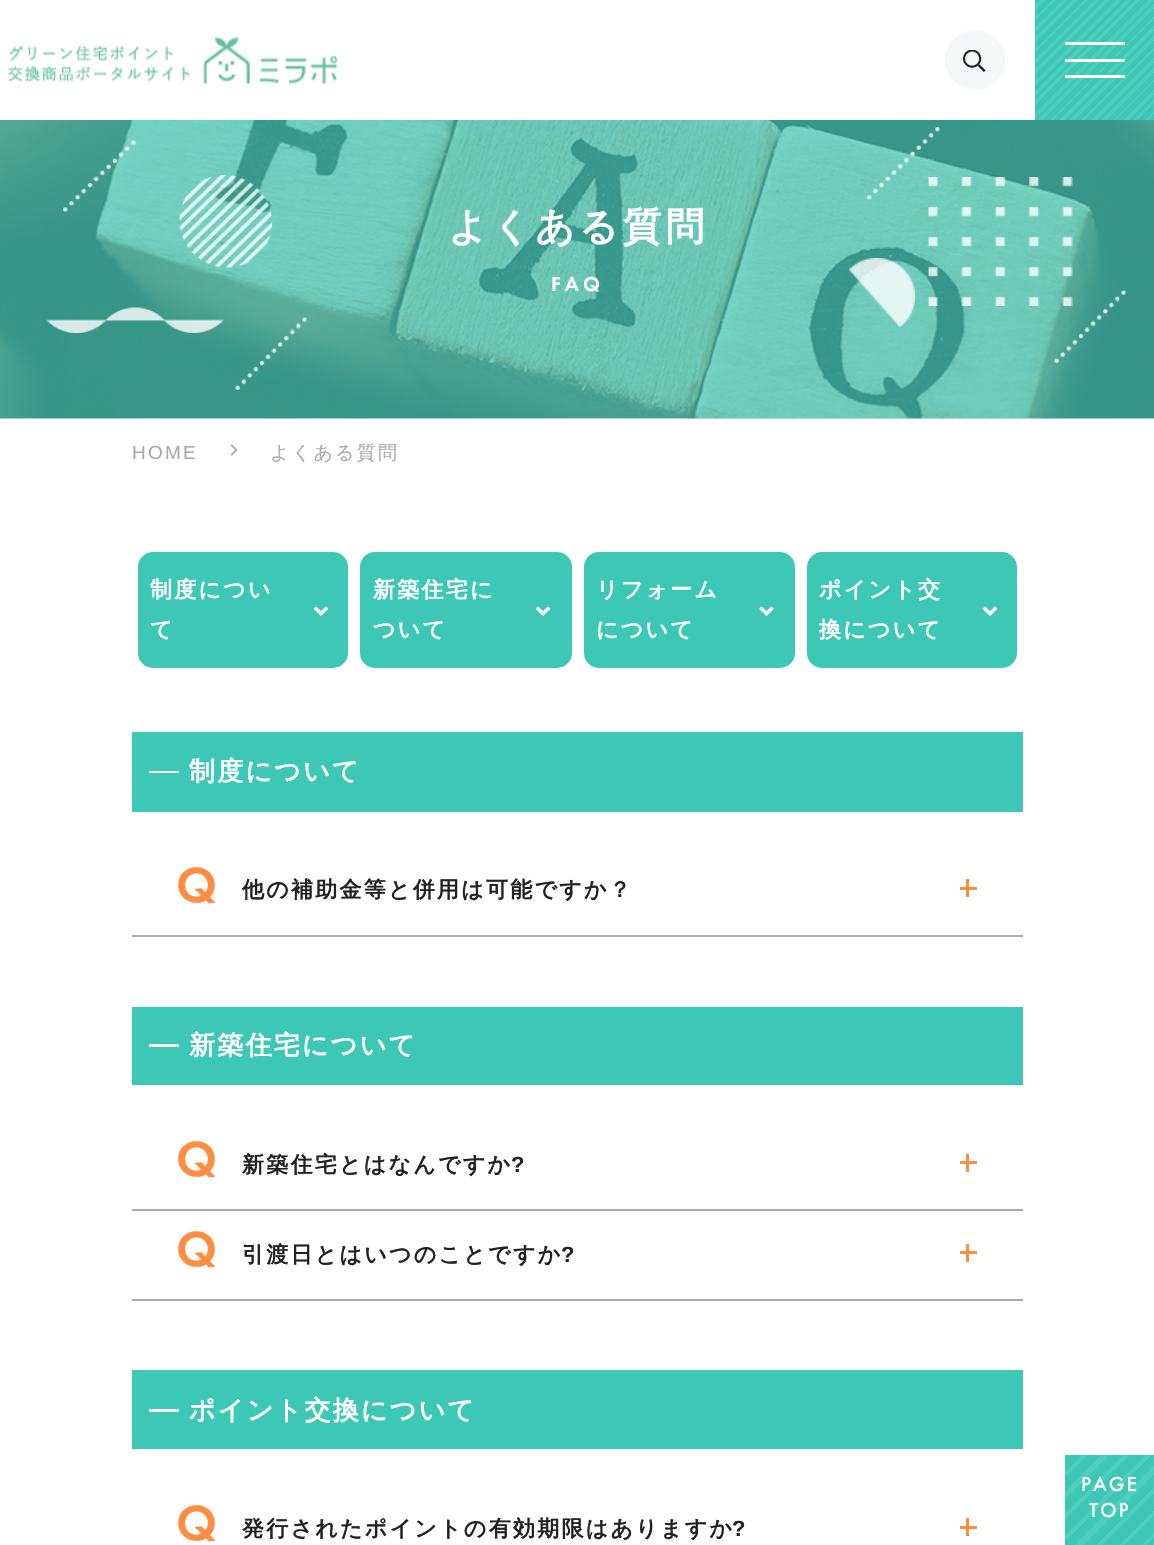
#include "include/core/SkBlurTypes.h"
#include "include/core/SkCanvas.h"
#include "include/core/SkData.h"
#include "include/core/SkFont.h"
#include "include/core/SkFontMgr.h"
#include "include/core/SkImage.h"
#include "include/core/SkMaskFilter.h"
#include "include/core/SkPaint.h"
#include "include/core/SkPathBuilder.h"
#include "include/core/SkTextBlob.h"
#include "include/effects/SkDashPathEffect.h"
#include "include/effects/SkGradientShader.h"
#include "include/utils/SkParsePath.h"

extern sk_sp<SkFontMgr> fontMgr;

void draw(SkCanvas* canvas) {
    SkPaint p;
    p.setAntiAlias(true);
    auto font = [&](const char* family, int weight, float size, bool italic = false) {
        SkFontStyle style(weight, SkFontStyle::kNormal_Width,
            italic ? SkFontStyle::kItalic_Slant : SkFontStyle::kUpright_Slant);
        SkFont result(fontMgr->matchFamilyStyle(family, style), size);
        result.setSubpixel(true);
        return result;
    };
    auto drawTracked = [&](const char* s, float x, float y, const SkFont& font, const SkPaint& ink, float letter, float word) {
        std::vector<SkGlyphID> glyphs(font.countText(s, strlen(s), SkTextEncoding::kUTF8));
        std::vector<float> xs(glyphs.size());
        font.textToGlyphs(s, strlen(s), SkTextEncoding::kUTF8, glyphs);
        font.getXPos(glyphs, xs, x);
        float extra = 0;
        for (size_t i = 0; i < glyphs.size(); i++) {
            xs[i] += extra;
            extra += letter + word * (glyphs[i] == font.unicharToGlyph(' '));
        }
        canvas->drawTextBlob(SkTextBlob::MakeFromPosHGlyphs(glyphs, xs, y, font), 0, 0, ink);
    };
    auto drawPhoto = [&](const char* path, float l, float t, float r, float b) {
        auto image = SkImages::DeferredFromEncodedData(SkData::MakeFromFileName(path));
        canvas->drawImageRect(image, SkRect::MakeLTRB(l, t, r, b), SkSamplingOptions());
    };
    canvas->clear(0xFFFFFFFF);
    drawPhoto("media/1.png", 7, 37, 338, 84);
    p.setColor(0xFFF5F7F8);
    canvas->drawCircle(975, 60, 30, p);
    drawPhoto("media/2.png", 963, 50, 986, 72);
    {
        const SkColor colors[] = {0xFF3DC8B6, 0xFF3DC8B6, 0xFF50CEBD, 0xFF50CEBD, 0xFF3DC8B6, 0xFF3DC8B6, 0xFF50CEBD, 0xFF50CEBD, 0xFF3DC8B6, 0xFF3DC8B6, 0xFF50CEBD, 0xFF50CEBD, 0xFF3DC8B6, 0xFF3DC8B6, 0xFF50CEBD, 0xFF50CEBD, 0xFF3DC8B6, 0xFF3DC8B6, 0xFF50CEBD, 0xFF50CEBD, 0xFF3DC8B6, 0xFF3DC8B6, 0xFF50CEBD, 0xFF50CEBD, 0xFF3DC8B6, 0xFF3DC8B6, 0xFF50CEBD, 0xFF50CEBD, 0xFF3DC8B6, 0xFF3DC8B6, 0xFF50CEBD, 0xFF50CEBD, 0xFF3DC8B6, 0xFF3DC8B6, 0xFF50CEBD, 0xFF50CEBD, 0xFF3DC8B6, 0xFF3DC8B6, 0xFF50CEBD, 0xFF50CEBD, 0xFF3DC8B6, 0xFF3DC8B6, 0xFF50CEBD, 0xFF50CEBD, 0xFF3DC8B6, 0xFF3DC8B6, 0xFF50CEBD, 0xFF50CEBD, 0xFF3DC8B6, 0xFF3DC8B6, 0xFF50CEBD, 0xFF50CEBD, 0xFF3DC8B6, 0xFF3DC8B6, 0xFF50CEBD, 0xFF50CEBD, 0xFF3DC8B6, 0xFF3DC8B6, 0xFF50CEBD, 0xFF50CEBD, 0xFF3DC8B6, 0xFF3DC8B6, 0xFF50CEBD, 0xFF50CEBD, 0xFF3DC8B6, 0xFF3DC8B6, 0xFF50CEBD, 0xFF50CEBD, 0xFF3DC8B6, 0xFF3DC8B6, 0xFF50CEBD, 0xFF50CEBD, 0xFF3DC8B6, 0xFF3DC8B6, 0xFF50CEBD, 0xFF50CEBD, 0xFF3DC8B6, 0xFF3DC8B6, 0xFF50CEBD, 0xFF50CEBD, 0xFF3DC8B6, 0xFF3DC8B6, 0xFF50CEBD, 0xFF50CEBD, 0xFF3DC8B6, 0xFF3DC8B6, 0xFF50CEBD, 0xFF50CEBD, 0xFF3DC8B6, 0xFF3DC8B6, 0xFF50CEBD, 0xFF50CEBD};
        const float stops[] = {0, 0.03f, 0.03f, 0.04f, 0.04f, 0.07f, 0.07f, 0.09f, 0.09f, 0.11f, 0.11f, 0.13f, 0.13f, 0.16f, 0.16f, 0.17f, 0.17f, 0.2f, 0.2f, 0.22f, 0.22f, 0.24f, 0.24f, 0.26f, 0.26f, 0.29f, 0.29f, 0.3f, 0.3f, 0.33f, 0.33f, 0.35f, 0.35f, 0.37f, 0.37f, 0.39f, 0.39f, 0.42f, 0.42f, 0.43f, 0.43f, 0.46f, 0.46f, 0.48f, 0.48f, 0.5f, 0.5f, 0.52f, 0.52f, 0.55f, 0.55f, 0.57f, 0.57f, 0.59f, 0.59f, 0.61f, 0.61f, 0.63f, 0.63f, 0.65f, 0.65f, 0.68f, 0.68f, 0.7f, 0.7f, 0.72f, 0.72f, 0.74f, 0.74f, 0.77f, 0.77f, 0.78f, 0.78f, 0.81f, 0.81f, 0.83f, 0.83f, 0.85f, 0.85f, 0.87f, 0.87f, 0.9f, 0.9f, 0.91f, 0.91f, 0.94f, 0.94f, 0.96f, 0.96f, 0.98f, 0.98f, 1};
        const SkPoint ends[] = {{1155, 120}, {1033, -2}};
        p.setShader(SkGradientShader::MakeLinear(ends, colors, stops, 92, SkTileMode::kClamp));
        p.setAlpha(255);
    }
    canvas->drawRect(SkRect::MakeLTRB(1035, 0, 1154, 120), p);
    p.setShader(nullptr);
    {
        const struct { float l, t, r, b; SkColor color; } items[] = {
            {1065, 42, 1125, 45, 0xFFFFFFFF},
            {1065, 59, 1125, 62, 0xFFFFFFFF},
            {1065, 75, 1125, 78, 0xFFFFFFFF},
        };
        for (auto [l, t, r, b, color] : items) {
            p.setColor(color);
            canvas->drawRect(SkRect::MakeLTRB(l, t, r, b), p);
        }
    }
    drawPhoto("media/3.png", 0, 120, 1154, 419);
    drawPhoto("media/4.png", 63, 140, 136, 212);
    drawPhoto("media/5.png", 178, 174, 273, 268);
    drawPhoto("media/6.png", 867, 126, 941, 200);
    drawPhoto("media/7.png", 928, 177, 1073, 306);
    drawPhoto("media/8.png", 46, 307, 224, 333);
    drawPhoto("media/9.png", 235, 316, 308, 390);
    drawPhoto("media/10.png", 849, 258, 915, 327);
    drawPhoto("media/11.png", 1054, 289, 1127, 363);
    auto font1 = font("WenQuanYi Zen Hei", 700, 38.75f);
    drawTracked("よくある質問", 448, 240, font1, p, 4, 0);
    auto font2 = font("Futura", 600, 21);
    drawTracked("FAQ", 551, 291, font2, p, 4, 0);
    auto font3 = font("Liberation Sans", 400, 19);
    p.setColor(0xFFAAAAAA);
    drawTracked("HOME", 132, 459, font3, p, 2.25f, 0);
    drawPhoto("media/12.png", 230, 444, 238, 456);
    auto font4 = font("WenQuanYi Zen Hei", 500, 19);
    drawTracked("よくある質問", 270, 459, font4, p, 2.25f, 0);
    p.setColor(0xFF3DC8B6);
    canvas->drawRoundRect(SkRect::MakeLTRB(139.5f, 553.5f, 346.5f, 666.5f), 13.5f, 13.5f, p);
    p.setStyle(SkPaint::kStroke_Style);
    p.setStrokeWidth(3);
    canvas->drawRoundRect(SkRect::MakeLTRB(139.5f, 553.5f, 346.5f, 666.5f), 13.5f, 13.5f, p);
    auto font5 = font("WenQuanYi Zen Hei", 700, 22);
    p.setStyle(SkPaint::kFill_Style);
    p.setColor(0xFFFFFFFF);
    drawTracked("制度につい", 150, 597, font5, p, 2.25f, 0);
    drawPhoto("media/13.png", 314, 606, 328, 616);
    drawTracked("て", 150, 637, font5, p, 2.25f, 0);
    p.setColor(0xFF3DC8B6);
    canvas->drawRoundRect(SkRect::MakeLTRB(361.5f, 553.5f, 570.5f, 666.5f), 13.5f, 13.5f, p);
    p.setStyle(SkPaint::kStroke_Style);
    canvas->drawRoundRect(SkRect::MakeLTRB(361.5f, 553.5f, 570.5f, 666.5f), 13.5f, 13.5f, p);
    p.setStyle(SkPaint::kFill_Style);
    p.setColor(0xFFFFFFFF);
    drawTracked("新築住宅に", 373, 597, font5, p, 2.25f, 0);
    drawPhoto("media/13.png", 536, 606, 550, 616);
    drawTracked("ついて", 373, 637, font5, p, 2.25f, 0);
    p.setColor(0xFF3DC8B6);
    canvas->drawRoundRect(SkRect::MakeLTRB(585.5f, 553.5f, 793.5f, 666.5f), 13.5f, 13.5f, p);
    p.setStyle(SkPaint::kStroke_Style);
    canvas->drawRoundRect(SkRect::MakeLTRB(585.5f, 553.5f, 793.5f, 666.5f), 13.5f, 13.5f, p);
    p.setStyle(SkPaint::kFill_Style);
    p.setColor(0xFFFFFFFF);
    drawTracked("リフォーム", 596, 597, font5, p, 2.25f, 0);
    drawPhoto("media/14.png", 759, 606, 774, 616);
    drawTracked("について", 596, 637, font5, p, 2.25f, 0);
    p.setColor(0xFF3DC8B6);
    canvas->drawRoundRect(SkRect::MakeLTRB(808.5f, 553.5f, 1015.5f, 666.5f), 13.5f, 13.5f, p);
    p.setStyle(SkPaint::kStroke_Style);
    canvas->drawRoundRect(SkRect::MakeLTRB(808.5f, 553.5f, 1015.5f, 666.5f), 13.5f, 13.5f, p);
    p.setStyle(SkPaint::kFill_Style);
    p.setColor(0xFFFFFFFF);
    drawTracked("ポイント交", 819, 597, font5, p, 2.25f, 0);
    drawPhoto("media/13.png", 983, 606, 997, 616);
    drawTracked("換について", 819, 637, font5, p, 2.25f, 0);
    p.setColor(0xFF3DC8B6);
    canvas->drawRect(SkRect::MakeLTRB(132, 732, 1023, 812), p);
    p.setColor(0xFFFFFFFF);
    canvas->drawRect(SkRect::MakeLTRB(149, 771, 179, 773), p);
    auto font6 = font("WenQuanYi Zen Hei", 700, 26);
    drawTracked("制度について", 189, 780, font6, p, 2.25f, 0);
    p.setColor(0xFFAAAAAA);
    canvas->drawRect(SkRect::MakeLTRB(132, 935, 1023, 937), p);
    auto font7 = font("Futura", 600, 51);
    p.setColor(0xFFFE8C41);
    drawTracked("Q", 176, 902, font7, p, 2.25f, 0);
    p.setColor(0xFF222222);
    drawTracked("他の補助金等と併用は可能ですか？", 242, 897, font5, p, 2.25f, 0);
    {
        const struct { float l, t, r, b; SkColor color; } items[] = {
            {960, 887, 977, 890, 0xFFFE8C41},
            {966, 879, 969, 897, 0xFFFE8C41},
            {132, 1007, 1023, 1085, 0xFF3DC8B6},
            {149, 1044, 179, 1047, 0xFFFFFFFF},
        };
        for (auto [l, t, r, b, color] : items) {
            p.setColor(color);
            canvas->drawRect(SkRect::MakeLTRB(l, t, r, b), p);
        }
    }
    drawTracked("新築住宅について", 189, 1054, font6, p, 2.25f, 0);
    p.setColor(0xFFAAAAAA);
    canvas->drawRect(SkRect::MakeLTRB(132, 1209, 1023, 1211), p);
    p.setColor(0xFFFE8C41);
    drawTracked("Q", 176, 1176, font7, p, 2.25f, 0);
    p.setColor(0xFF222222);
    drawTracked("新築住宅とはなんですか", 242, 1172, font5, p, 2.25f, 0);
    auto font8 = font("Liberation Sans", 700, 22);
    drawTracked("?", 511, 1172, font8, p, 2.25f, 0);
    {
        const struct { float l, t, r, b; SkColor color; } items[] = {
            {960, 1161, 977, 1164, 0xFFFE8C41},
            {966, 1154, 969, 1172, 0xFFFE8C41},
            {132, 1299, 1023, 1301, 0xFFAAAAAA},
        };
        for (auto [l, t, r, b, color] : items) {
            p.setColor(color);
            canvas->drawRect(SkRect::MakeLTRB(l, t, r, b), p);
        }
    }
    p.setColor(0xFFFE8C41);
    drawTracked("Q", 176, 1266, font7, p, 2.25f, 0);
    p.setColor(0xFF222222);
    drawTracked("引渡日とはいつのことですか", 242, 1262, font5, p, 2.25f, 0);
    drawTracked("?", 561, 1262, font8, p, 2.25f, 0);
    {
        const struct { float l, t, r, b; SkColor color; } items[] = {
            {960, 1251, 977, 1254, 0xFFFE8C41},
            {966, 1244, 969, 1262, 0xFFFE8C41},
            {132, 1370, 1023, 1449, 0xFF3DC8B6},
            {149, 1409, 179, 1412, 0xFFFFFFFF},
        };
        for (auto [l, t, r, b, color] : items) {
            p.setColor(color);
            canvas->drawRect(SkRect::MakeLTRB(l, t, r, b), p);
        }
    }
    drawTracked("ポイント交換について", 189, 1419, font6, p, 2.25f, 0);
    p.setColor(0xFFFE8C41);
    drawTracked("Q", 176, 1540, font7, p, 2.25f, 0);
    p.setColor(0xFF222222);
    drawTracked("発行されたポイントの有効期限はありますか", 242, 1536, font5, p, 2.25f, 0);
    drawTracked("?", 732, 1536, font8, p, 2.25f, 0);
    p.setColor(0xFFFE8C41);
    canvas->drawRect(SkRect::MakeLTRB(960, 1526, 977, 1529), p);
    canvas->drawRect(SkRect::MakeLTRB(966, 1518, 969, 1536), p);
    {
        const SkColor colors[] = {0xFF3DC8B6, 0xFF3DC8B6, 0xFF50CEBD, 0xFF50CEBD, 0xFF3DC8B6, 0xFF3DC8B6, 0xFF50CEBD, 0xFF50CEBD, 0xFF3DC8B6, 0xFF3DC8B6, 0xFF50CEBD, 0xFF50CEBD, 0xFF3DC8B6, 0xFF3DC8B6, 0xFF50CEBD, 0xFF50CEBD, 0xFF3DC8B6, 0xFF3DC8B6, 0xFF50CEBD, 0xFF50CEBD, 0xFF3DC8B6, 0xFF3DC8B6, 0xFF50CEBD, 0xFF50CEBD, 0xFF3DC8B6, 0xFF3DC8B6, 0xFF50CEBD, 0xFF50CEBD, 0xFF3DC8B6, 0xFF3DC8B6, 0xFF50CEBD, 0xFF50CEBD, 0xFF3DC8B6, 0xFF3DC8B6, 0xFF50CEBD, 0xFF50CEBD, 0xFF3DC8B6, 0xFF3DC8B6, 0xFF50CEBD, 0xFF50CEBD, 0xFF3DC8B6, 0xFF3DC8B6, 0xFF50CEBD, 0xFF50CEBD, 0xFF3DC8B6, 0xFF3DC8B6, 0xFF50CEBD, 0xFF50CEBD, 0xFF3DC8B6, 0xFF3DC8B6, 0xFF50CEBD, 0xFF50CEBD};
        const float stops[] = {0, 0.05f, 0.05f, 0.08f, 0.08f, 0.13f, 0.13f, 0.15f, 0.15f, 0.21f, 0.21f, 0.23f, 0.23f, 0.28f, 0.28f, 0.31f, 0.31f, 0.36f, 0.36f, 0.38f, 0.38f, 0.44f, 0.44f, 0.46f, 0.46f, 0.52f, 0.52f, 0.54f, 0.54f, 0.59f, 0.59f, 0.62f, 0.62f, 0.67f, 0.67f, 0.69f, 0.69f, 0.75f, 0.75f, 0.77f, 0.77f, 0.82f, 0.82f, 0.85f, 0.85f, 0.9f, 0.9f, 0.92f, 0.92f, 0.98f, 0.98f, 1};
        const SkPoint ends[] = {{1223, 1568}, {1085, 1430}};
        p.setShader(SkGradientShader::MakeLinear(ends, colors, stops, 52, SkTileMode::kClamp));
        p.setAlpha(255);
    }
    canvas->drawRect(SkRect::MakeLTRB(1065, 1455, 1154, 1545), p);
    auto font9 = font("Futura", 500, 21);
    p.setShader(nullptr);
    p.setColor(0xFFFFFFFF);
    drawTracked("PAGE", 1081, 1491, font9, p, 2, 0);
    drawTracked("TOP", 1089, 1517, font9, p, 2, 0);
}
